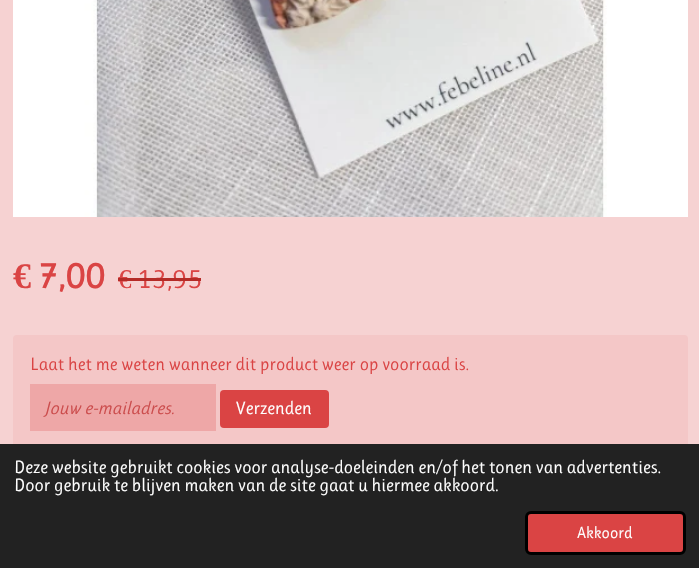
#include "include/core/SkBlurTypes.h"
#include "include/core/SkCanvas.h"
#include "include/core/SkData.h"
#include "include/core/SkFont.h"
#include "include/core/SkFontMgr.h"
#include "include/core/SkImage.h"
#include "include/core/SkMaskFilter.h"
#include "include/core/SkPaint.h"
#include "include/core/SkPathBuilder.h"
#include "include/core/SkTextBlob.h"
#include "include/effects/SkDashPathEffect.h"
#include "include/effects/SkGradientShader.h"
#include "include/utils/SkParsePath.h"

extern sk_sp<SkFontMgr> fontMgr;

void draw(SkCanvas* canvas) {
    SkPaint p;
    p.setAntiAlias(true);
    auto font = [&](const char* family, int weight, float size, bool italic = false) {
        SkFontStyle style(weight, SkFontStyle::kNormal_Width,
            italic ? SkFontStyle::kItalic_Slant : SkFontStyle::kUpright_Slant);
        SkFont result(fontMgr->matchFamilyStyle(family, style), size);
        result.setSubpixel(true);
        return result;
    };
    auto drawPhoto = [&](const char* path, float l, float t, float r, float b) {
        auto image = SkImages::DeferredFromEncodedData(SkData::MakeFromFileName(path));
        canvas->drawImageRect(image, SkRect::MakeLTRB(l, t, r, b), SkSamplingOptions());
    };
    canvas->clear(0xFFF6D2D2);
    drawPhoto("media/1.png", 13, 0, 688, 217);
    auto font1 = font("Liberation Serif", 700, 36);
    p.setColor(0xFFDA4444);
    canvas->drawString("€", 13, 288, font1, p);
    auto font2 = font("Ruluko", 700, 36);
    canvas->drawString("7,00", 38, 288, font2, p);
    auto font3 = font("Liberation Serif", 400, 27);
    canvas->drawString("€", 118, 288, font3, p);
    auto font4 = font("Ruluko", 400, 27);
    canvas->drawString("13,95", 137, 288, font4, p);
    p.setColor(0xFFB52B27);
    canvas->drawRect(SkRect::MakeLTRB(118, 278, 201, 281), p);
    p.setColor(0xFFF4C7C7);
    canvas->drawRoundRect(SkRect::MakeLTRB(13, 335, 688, 450), 4, 4, p);
    auto font5 = font("Ruluko", 400, 17.9f);
    p.setColor(0xFFDA4444);
    canvas->drawString("Laat het me weten wanneer dit product weer op voorraad is.", 30, 370, font5, p);
    p.setColor(0xFFEEA7A7);
    canvas->drawRect(SkRect::MakeLTRB(30, 384, 216, 431), p);
    auto font6 = font("Ruluko", 400, 17.9f, true);
    p.setColor(0xFFCC4D4D);
    canvas->drawString("Jouw e-mailadres.", 44, 414, font6, p);
    p.setColor(0xFFDA4444);
    canvas->drawRoundRect(SkRect::MakeLTRB(220, 390, 329, 428), 4, 4, p);
    p.setColor(0xFFFFFFFF);
    canvas->drawString("Verzenden", 236, 414, font5, p);
    p.setColor(0xFF222222);
    canvas->drawRect(SkRect::MakeLTRB(0, 444, 699, 568), p);
    p.setColor(0xFFFFFFFF);
    canvas->drawString("Deze website gebruikt cookies voor analyse-doeleinden en/of het tonen van advertenties.", 14, 473, font5, p);
    canvas->drawString("Door gebruik te blijven maken van de site gaat u hiermee akkoord.", 14, 491, font5, p);
    p.setColor(0xFFDA4444);
    canvas->drawRoundRect(SkRect::MakeLTRB(526.5f, 512.5f, 684.5f, 553.5f), 4.5f, 4.5f, p);
    p.setStyle(SkPaint::kStroke_Style);
    p.setStrokeWidth(3);
    p.setColor(0xFF000000);
    canvas->drawRoundRect(SkRect::MakeLTRB(526.5f, 512.5f, 684.5f, 553.5f), 4.5f, 4.5f, p);
    auto font7 = font("Ruluko", 400, 16);
    p.setStyle(SkPaint::kFill_Style);
    p.setColor(0xFFFFFFFF);
    canvas->drawString("Akkoord", 577, 538, font7, p);
}
